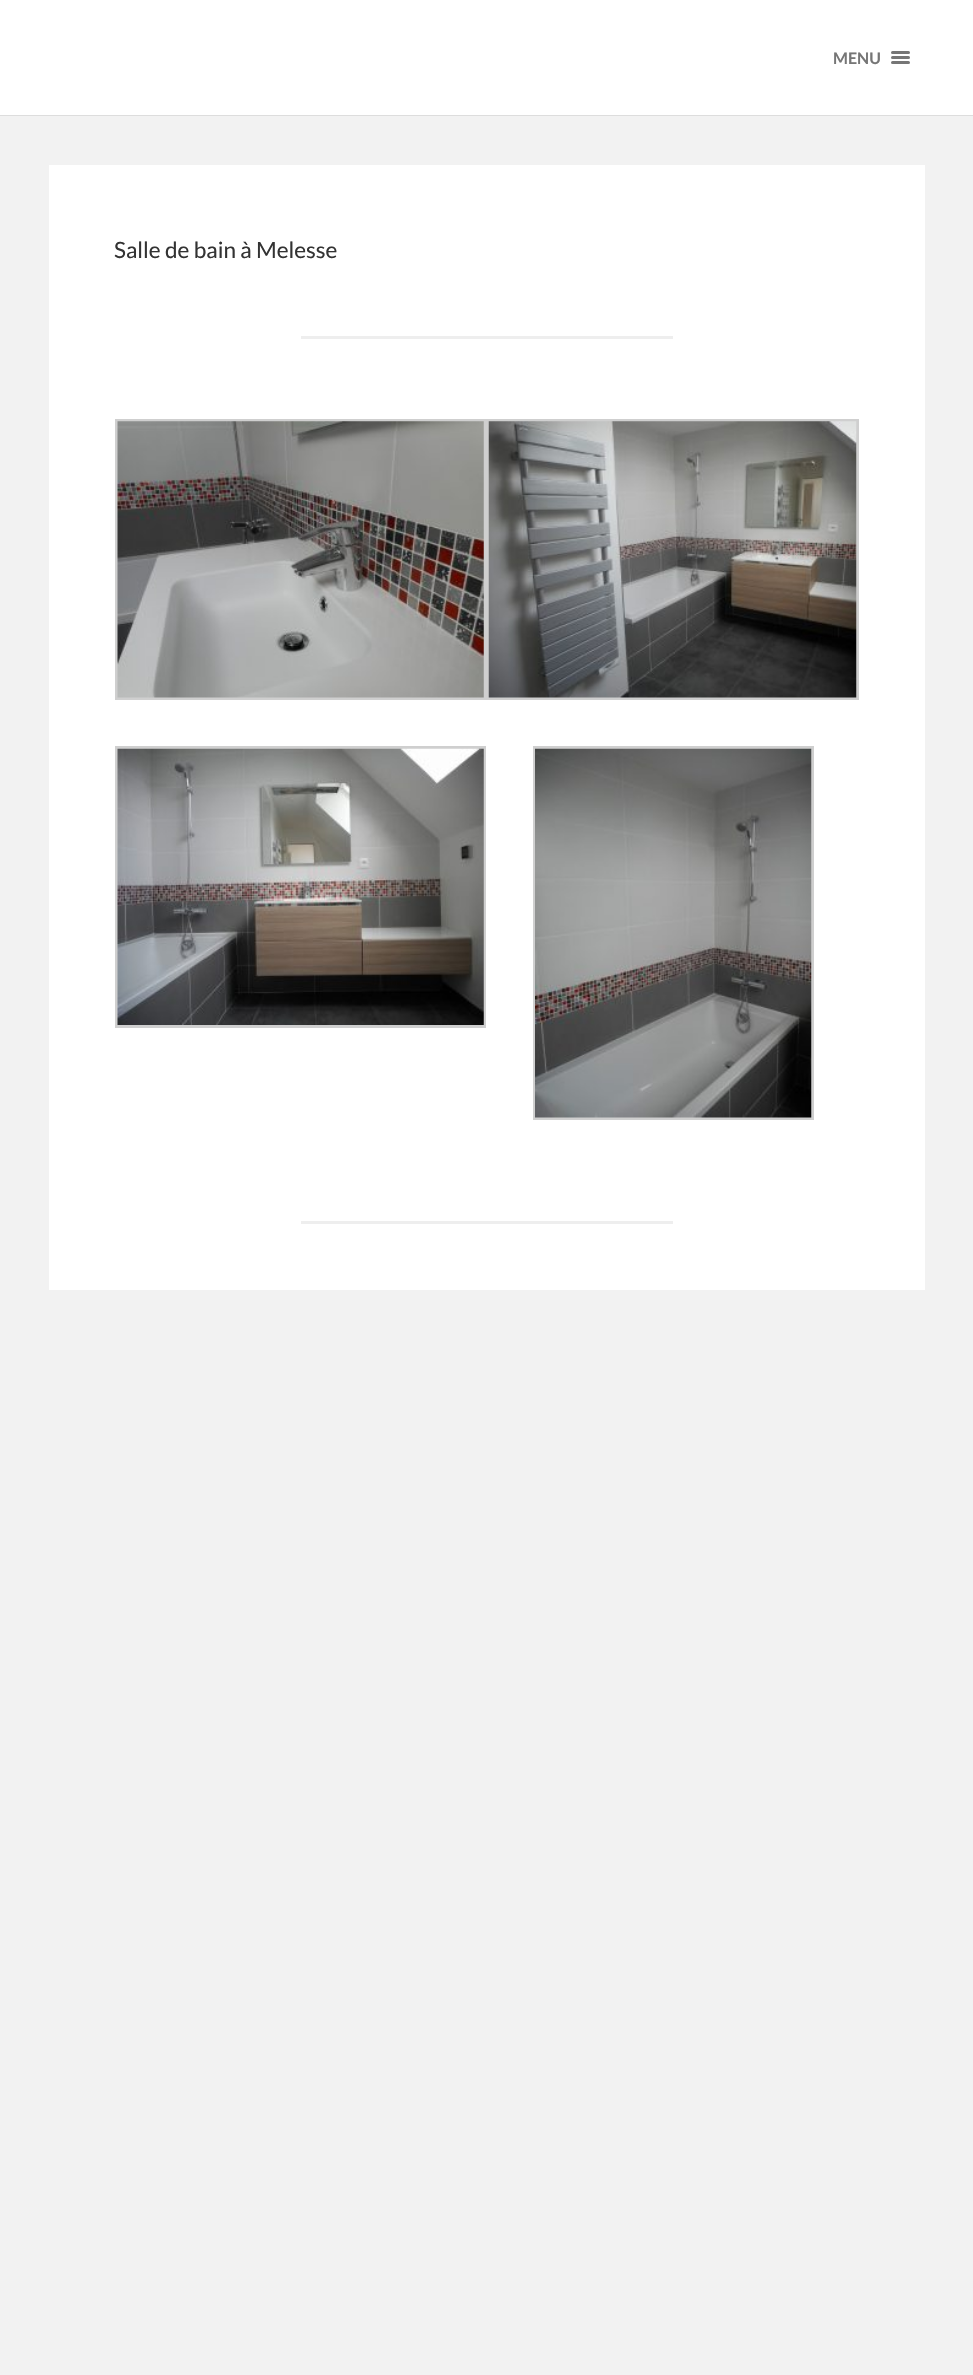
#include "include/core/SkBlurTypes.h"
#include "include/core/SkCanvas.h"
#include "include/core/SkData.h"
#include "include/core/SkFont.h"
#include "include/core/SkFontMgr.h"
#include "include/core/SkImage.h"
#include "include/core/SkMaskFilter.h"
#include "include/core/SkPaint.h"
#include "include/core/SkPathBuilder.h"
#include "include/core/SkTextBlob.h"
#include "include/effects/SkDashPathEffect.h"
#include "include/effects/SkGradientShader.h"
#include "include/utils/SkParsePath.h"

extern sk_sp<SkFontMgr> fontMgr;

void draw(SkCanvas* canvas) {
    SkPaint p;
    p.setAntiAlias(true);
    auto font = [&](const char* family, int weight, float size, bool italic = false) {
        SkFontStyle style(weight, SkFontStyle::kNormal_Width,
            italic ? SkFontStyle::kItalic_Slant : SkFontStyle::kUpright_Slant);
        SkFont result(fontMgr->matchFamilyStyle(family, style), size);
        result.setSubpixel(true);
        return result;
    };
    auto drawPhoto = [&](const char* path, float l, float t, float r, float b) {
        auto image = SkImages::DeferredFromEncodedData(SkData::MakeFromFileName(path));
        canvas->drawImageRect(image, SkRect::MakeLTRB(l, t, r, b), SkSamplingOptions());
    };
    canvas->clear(0xFFF2F2F2);
    p.setColor(0xFFFFFFFF);
    canvas->drawRect(SkRect::MakeLTRB(0, 0, 973, 115), p);
    p.setColor(0xFFDDDDDD);
    canvas->drawRect(SkRect::MakeLTRB(0, 115, 973, 116), p);
    auto font1 = font("Lato", 700, 16);
    p.setColor(0xFF767676);
    canvas->drawString("MENU", 833, 64, font1, p);
    canvas->drawRoundRect(SkRect::MakeLTRB(891, 51, 910, 54), 1.5f, 1.5f, p);
    canvas->drawRoundRect(SkRect::MakeLTRB(891, 56, 910, 59), 1.5f, 1.5f, p);
    canvas->drawRoundRect(SkRect::MakeLTRB(891, 61, 910, 64), 1.5f, 1.5f, p);
    p.setColor(0xFFFFFFFF);
    canvas->drawRect(SkRect::MakeLTRB(49, 165, 925, 1290), p);
    auto font2 = font("Lato", 400, 22.5f);
    p.setColor(0xFF333333);
    canvas->drawString("Salle de bain à Melesse", 114, 258, font2, p);
    p.setColor(0xFFEEEEEE);
    canvas->drawRect(SkRect::MakeLTRB(301, 336, 673, 339), p);
    p.setStyle(SkPaint::kStroke_Style);
    p.setStrokeWidth(3);
    p.setColor(0xFFCFCFCF);
    canvas->drawRect(SkRect::MakeLTRB(116.5f, 420.5f, 484.5f, 698.5f), p);
    drawPhoto("media/1.png", 117, 421, 484, 698);
    canvas->drawRect(SkRect::MakeLTRB(487.5f, 420.5f, 857.5f, 698.5f), p);
    drawPhoto("media/2.png", 488, 421, 857, 698);
    canvas->drawRect(SkRect::MakeLTRB(116.5f, 747.5f, 484.5f, 1026.5f), p);
    drawPhoto("media/3.png", 117, 748, 484, 1025);
    canvas->drawRect(SkRect::MakeLTRB(534.5f, 747.5f, 812.5f, 1118.5f), p);
    drawPhoto("media/4.png", 535, 748, 812, 1118);
    p.setStyle(SkPaint::kFill_Style);
    p.setColor(0xFFEEEEEE);
    canvas->drawRect(SkRect::MakeLTRB(301, 1221, 673, 1224), p);
}
